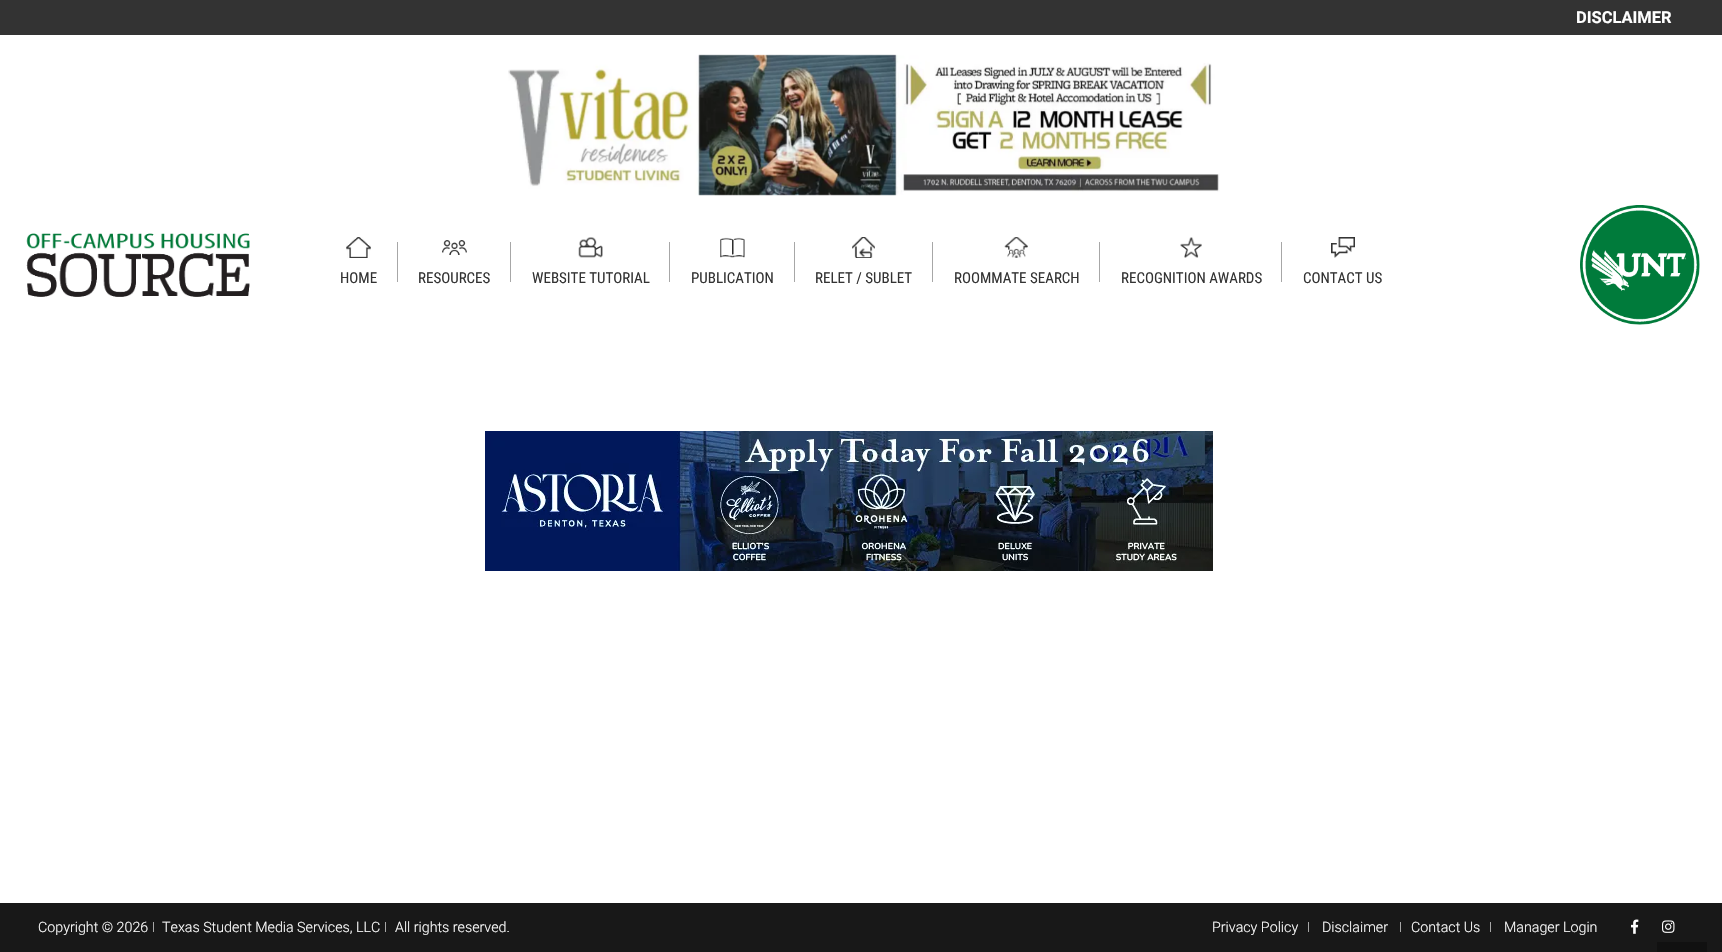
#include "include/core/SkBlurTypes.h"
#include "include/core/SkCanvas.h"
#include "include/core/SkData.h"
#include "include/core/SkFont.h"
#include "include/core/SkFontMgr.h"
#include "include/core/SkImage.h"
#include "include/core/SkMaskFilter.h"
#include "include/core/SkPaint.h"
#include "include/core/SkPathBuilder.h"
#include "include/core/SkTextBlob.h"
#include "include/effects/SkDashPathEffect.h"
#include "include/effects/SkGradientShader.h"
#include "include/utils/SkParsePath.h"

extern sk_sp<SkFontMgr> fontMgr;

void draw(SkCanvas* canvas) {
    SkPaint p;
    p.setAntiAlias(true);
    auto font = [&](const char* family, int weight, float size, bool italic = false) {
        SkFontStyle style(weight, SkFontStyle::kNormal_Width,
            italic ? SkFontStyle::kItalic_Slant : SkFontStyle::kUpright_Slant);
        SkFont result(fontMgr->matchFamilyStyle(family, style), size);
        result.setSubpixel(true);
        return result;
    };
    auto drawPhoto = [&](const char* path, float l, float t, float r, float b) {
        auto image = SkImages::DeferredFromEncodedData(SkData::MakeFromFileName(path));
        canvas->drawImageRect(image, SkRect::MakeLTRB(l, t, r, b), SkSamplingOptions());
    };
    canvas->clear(0xFFFFFFFF);
    p.setColor(0xFF333333);
    canvas->drawRect(SkRect::MakeLTRB(0, 0, 1722, 35), p);
    auto font1 = font("Roboto", 700, 16.5f);
    p.setColor(0xFFFFFFFF);
    canvas->drawString("DISCLAIMER", 1576, 23, font1, p);
    drawPhoto("media/1.png", 508, 54, 1220, 196);
    drawPhoto("media/2.png", 26, 233, 250, 297);
    drawPhoto("media/3.png", 346, 237, 371, 258);
    p.setColor(0xFFA7A7A7);
    canvas->drawRect(SkRect::MakeLTRB(397, 242, 398, 282), p);
    auto font2 = font("Roboto Condensed", 400, 15);
    p.setColor(0xFF333333);
    canvas->drawString("HOME", 340, 283, font2, p);
    drawPhoto("media/4.png", 442, 240, 467, 255);
    p.setColor(0xFFA7A7A7);
    canvas->drawRect(SkRect::MakeLTRB(510, 242, 511, 282), p);
    p.setColor(0xFF333333);
    canvas->drawString("RESOURCES", 418, 283, font2, p);
    drawPhoto("media/5.png", 578, 237, 603, 258);
    p.setColor(0xFFA7A7A7);
    canvas->drawRect(SkRect::MakeLTRB(669, 242, 670, 282), p);
    p.setColor(0xFF333333);
    canvas->drawString("WEBSITE TUTORIAL", 532, 283, font2, p);
    drawPhoto("media/6.png", 720, 237, 745, 258);
    p.setColor(0xFFA7A7A7);
    canvas->drawRect(SkRect::MakeLTRB(794, 242, 795, 282), p);
    p.setColor(0xFF333333);
    canvas->drawString("PUBLICATION", 691, 283, font2, p);
    drawPhoto("media/7.png", 852, 237, 875, 258);
    p.setColor(0xFFA7A7A7);
    canvas->drawRect(SkRect::MakeLTRB(932, 242, 933, 282), p);
    p.setColor(0xFF333333);
    canvas->drawString("RELET / SUBLET", 815, 283, font2, p);
    drawPhoto("media/8.png", 1004, 237, 1028, 258);
    p.setColor(0xFFA7A7A7);
    canvas->drawRect(SkRect::MakeLTRB(1099, 242, 1100, 282), p);
    p.setColor(0xFF333333);
    canvas->drawString("ROOMMATE SEARCH", 954, 283, font2, p);
    drawPhoto("media/9.png", 1180, 237, 1202, 258);
    p.setColor(0xFFA7A7A7);
    canvas->drawRect(SkRect::MakeLTRB(1281, 242, 1282, 282), p);
    p.setColor(0xFF333333);
    canvas->drawString("RECOGNITION AWARDS", 1121, 283, font2, p);
    drawPhoto("media/10.png", 1331, 237, 1355, 258);
    canvas->drawString("CONTACT US", 1303, 283, font2, p);
    drawPhoto("media/11.png", 1580, 205, 1700, 325);
    drawPhoto("media/12.png", 485, 431, 1213, 571);
    p.setColor(0xFF181818);
    canvas->drawRect(SkRect::MakeLTRB(0, 903, 1722, 952), p);
    auto font3 = font("Roboto", 300, 14.25f);
    p.setColor(0xFFFFFFFF);
    canvas->drawString("Copyright © 2026", 38, 932, font3, p);
    p.setColor(0xFFA7A7A7);
    canvas->drawRect(SkRect::MakeLTRB(153, 922, 154, 932), p);
    p.setColor(0xFFFFFFFF);
    canvas->drawString("Texas Student Media Services, LLC", 162, 932, font3, p);
    p.setColor(0xFFA7A7A7);
    canvas->drawRect(SkRect::MakeLTRB(385, 922, 386, 932), p);
    p.setColor(0xFFFFFFFF);
    canvas->drawString("All rights reserved.", 395, 932, font3, p);
    canvas->drawString("Privacy Policy", 1212, 932, font3, p);
    p.setColor(0xFFA7A7A7);
    canvas->drawRect(SkRect::MakeLTRB(1308, 922, 1309, 932), p);
    p.setColor(0xFFFFFFFF);
    canvas->drawString("Disclaimer", 1322, 932, font3, p);
    p.setColor(0xFFA7A7A7);
    canvas->drawRect(SkRect::MakeLTRB(1400, 922, 1401, 932), p);
    p.setColor(0xFFFFFFFF);
    canvas->drawString("Contact Us", 1411, 932, font3, p);
    p.setColor(0xFFA7A7A7);
    canvas->drawRect(SkRect::MakeLTRB(1490, 922, 1491, 932), p);
    p.setColor(0xFFFFFFFF);
    canvas->drawString("Manager Login", 1504, 932, font3, p);
    drawPhoto("media/13.png", 1631, 919, 1639, 934);
    drawPhoto("media/14.png", 1662, 920, 1675, 933);
    p.setColor(0xFF111111);
    canvas->drawRect(SkRect::MakeLTRB(1657, 942, 1707, 952), p);
}
